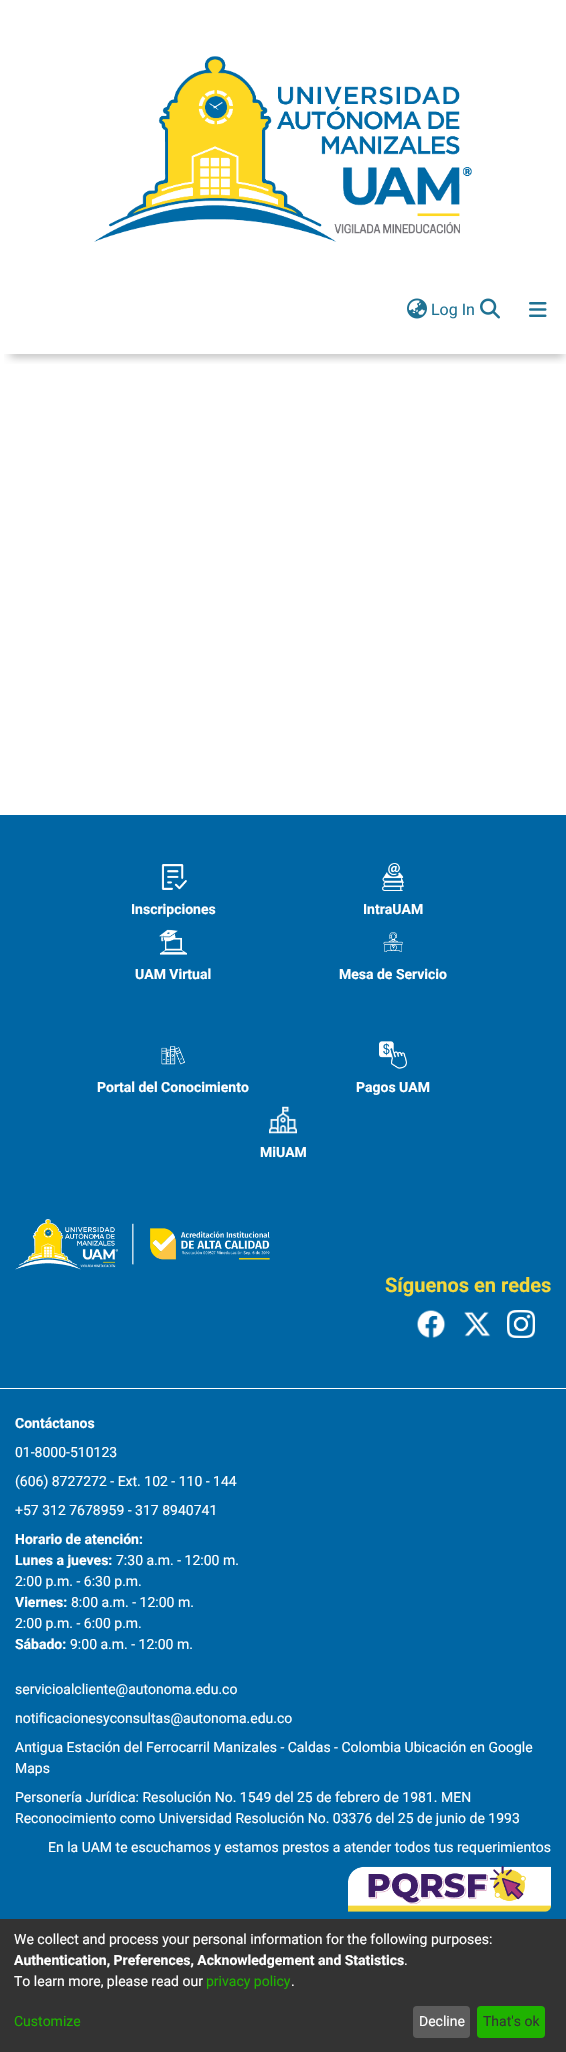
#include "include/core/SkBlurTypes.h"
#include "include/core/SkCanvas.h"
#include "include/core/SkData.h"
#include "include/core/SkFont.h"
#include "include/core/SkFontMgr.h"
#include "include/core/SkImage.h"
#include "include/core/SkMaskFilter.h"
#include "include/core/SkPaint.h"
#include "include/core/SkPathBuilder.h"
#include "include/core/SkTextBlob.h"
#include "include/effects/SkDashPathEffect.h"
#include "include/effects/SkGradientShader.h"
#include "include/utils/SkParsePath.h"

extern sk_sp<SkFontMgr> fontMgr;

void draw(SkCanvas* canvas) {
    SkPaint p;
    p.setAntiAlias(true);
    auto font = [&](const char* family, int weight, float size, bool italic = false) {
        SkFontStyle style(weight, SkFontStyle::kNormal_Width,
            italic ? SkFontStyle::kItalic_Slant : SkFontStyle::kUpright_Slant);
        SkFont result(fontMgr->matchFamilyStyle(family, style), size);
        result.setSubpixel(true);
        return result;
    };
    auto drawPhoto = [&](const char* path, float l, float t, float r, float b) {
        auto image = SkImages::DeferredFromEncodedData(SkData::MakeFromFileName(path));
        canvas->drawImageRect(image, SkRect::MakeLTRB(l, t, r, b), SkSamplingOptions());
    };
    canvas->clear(0xFFFFFFFF);
    drawPhoto("media/1.png", 94, 56, 472, 242);
    drawPhoto("media/2.png", 407, 298, 427, 319);
    auto font1 = font("Roboto", 400, 16);
    p.setColor(0xFF1F7293);
    canvas->drawString("Log In", 431, 315, font1, p);
    drawPhoto("media/3.png", 480, 298, 500, 319);
    drawPhoto("media/4.png", 529, 302, 547, 317);
    canvas->save();
    canvas->clipRect(SkRect::MakeLTRB(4, 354, 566, 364));
    p.setColor(0x8F000000);
    p.setMaskFilter(SkMaskFilter::MakeBlur(kNormal_SkBlurStyle, 5));
    canvas->drawRect(SkRect::MakeLTRB(10, 351, 564, 355), p);
    p.setMaskFilter(nullptr);
    canvas->restore();
    p.setColor(0xFF0066A4);
    canvas->drawRect(SkRect::MakeLTRB(0, 815, 566, 1919), p);
    drawPhoto("media/5.png", 161, 864, 187, 890);
    auto font2 = font("Roboto", 700, 14);
    p.setColor(0xFFFFFFFF);
    canvas->drawString("Inscripciones", 131, 914, font2, p);
    drawPhoto("media/6.png", 382, 863, 404, 891);
    canvas->drawString("IntraUAM", 363, 914, font2, p);
    drawPhoto("media/7.png", 159, 929, 187, 955);
    canvas->drawString("UAM Virtual", 135, 979, font2, p);
    drawPhoto("media/8.png", 383, 932, 403, 952);
    canvas->drawString("Mesa de Servicio", 339, 979, font2, p);
    drawPhoto("media/9.png", 161, 1046, 185, 1065);
    canvas->drawString("Portal del Conocimiento", 97, 1092, font2, p);
    drawPhoto("media/10.png", 379, 1041, 407, 1069);
    canvas->drawString("Pagos UAM", 356, 1092, font2, p);
    drawPhoto("media/11.png", 269, 1106, 297, 1134);
    canvas->drawString("MiUAM", 260, 1157, font2, p);
    canvas->drawRect(SkRect::MakeLTRB(0, 1388, 566, 1389), p);
    drawPhoto("media/12.png", 15, 1219, 270, 1270);
    auto font3 = font("Roboto", 700, 20);
    p.setColor(0xFFF4D73B);
    canvas->drawString("Síguenos en redes", 385, 1292, font3, p);
    drawPhoto("media/13.png", 417, 1310, 446, 1338);
    drawPhoto("media/14.png", 464, 1311, 491, 1337);
    drawPhoto("media/15.png", 507, 1310, 535, 1338);
    p.setColor(0xFFFFFFFF);
    canvas->drawString("Contáctanos", 15, 1428, font2, p);
    auto font4 = font("Roboto", 400, 14);
    {
        const struct { const char* s; float x, y; } items[] = {
            {"01-8000-510123", 15, 1457},
            {"(606) 8727272 - Ext. 102 - 110 - 144", 15, 1486},
            {"+57 312 7678959 - 317 8940741", 15, 1515},
        };
        for (auto [s, x, y] : items) {
            canvas->drawString(s, x, y, font4, p);
        }
    }
    canvas->drawString("Horario de atención:", 15, 1544, font2, p);
    canvas->drawString("Lunes a jueves:", 15, 1565, font2, p);
    canvas->drawString("7:30 a.m. - 12:00 m.", 116, 1565, font4, p);
    canvas->drawString("2:00 p.m. - 6:30 p.m.", 15, 1586, font4, p);
    canvas->drawString("Viernes:", 15, 1607, font2, p);
    canvas->drawString("8:00 a.m. - 12:00 m.", 71, 1607, font4, p);
    canvas->drawString("2:00 p.m. - 6:00 p.m.", 15, 1628, font4, p);
    canvas->drawString("Sábado:", 15, 1649, font2, p);
    {
        const struct { const char* s; float x, y; } items[] = {
            {"9:00 a.m. - 12:00 m.", 70, 1649},
            {"servicioalcliente@autonoma.edu.co", 15, 1694},
            {"notificacionesyconsultas@autonoma.edu.co", 15, 1723},
            {"Antigua Estación del Ferrocarril Manizales - Caldas - Colombia Ubicación en Google", 15, 1752},
            {"Maps", 15, 1773},
            {"Personería Jurídica: Resolución No. 1549 del 25 de febrero de 1981. MEN", 15, 1802},
            {"Reconocimiento como Universidad Resolución No. 03376 del 25 de junio de 1993", 15, 1823},
            {"En la UAM te escuchamos y estamos prestos a atender todos tus requerimientos", 48, 1852},
        };
        for (auto [s, x, y] : items) {
            canvas->drawString(s, x, y, font4, p);
        }
    }
    drawPhoto("media/16.png", 348, 1866, 551, 1912);
    p.setColor(0xFF333333);
    canvas->drawRect(SkRect::MakeLTRB(0, 1919, 566, 2052), p);
    p.setColor(0xFFFFFFFF);
    canvas->drawString("We collect and process your personal information for the following purposes:", 14, 1944, font4, p);
    canvas->drawString("Authentication, Preferences, Acknowledgement and Statistics", 14, 1965, font2, p);
    canvas->drawString(".", 404, 1965, font4, p);
    canvas->drawString("To learn more, please read our", 14, 1986, font4, p);
    p.setColor(0xFF1FB300);
    canvas->drawString("privacy policy", 206, 1986, font4, p);
    p.setColor(0xFFFFFFFF);
    canvas->drawString(".", 291, 1986, font4, p);
    p.setColor(0xFF1FB300);
    canvas->drawString("Customize", 14, 2026, font4, p);
    p.setColor(0xFF5C5C5C);
    canvas->drawRoundRect(SkRect::MakeLTRB(413, 2006, 470, 2038), 4, 4, p);
    p.setColor(0xFFFFFFFF);
    canvas->drawString("Decline", 419, 2026, font4, p);
    p.setColor(0xFF1FB300);
    canvas->drawRoundRect(SkRect::MakeLTRB(477, 2006, 545, 2038), 4, 4, p);
    p.setColor(0xFF333333);
    canvas->drawString("That's ok", 483, 2026, font4, p);
}
